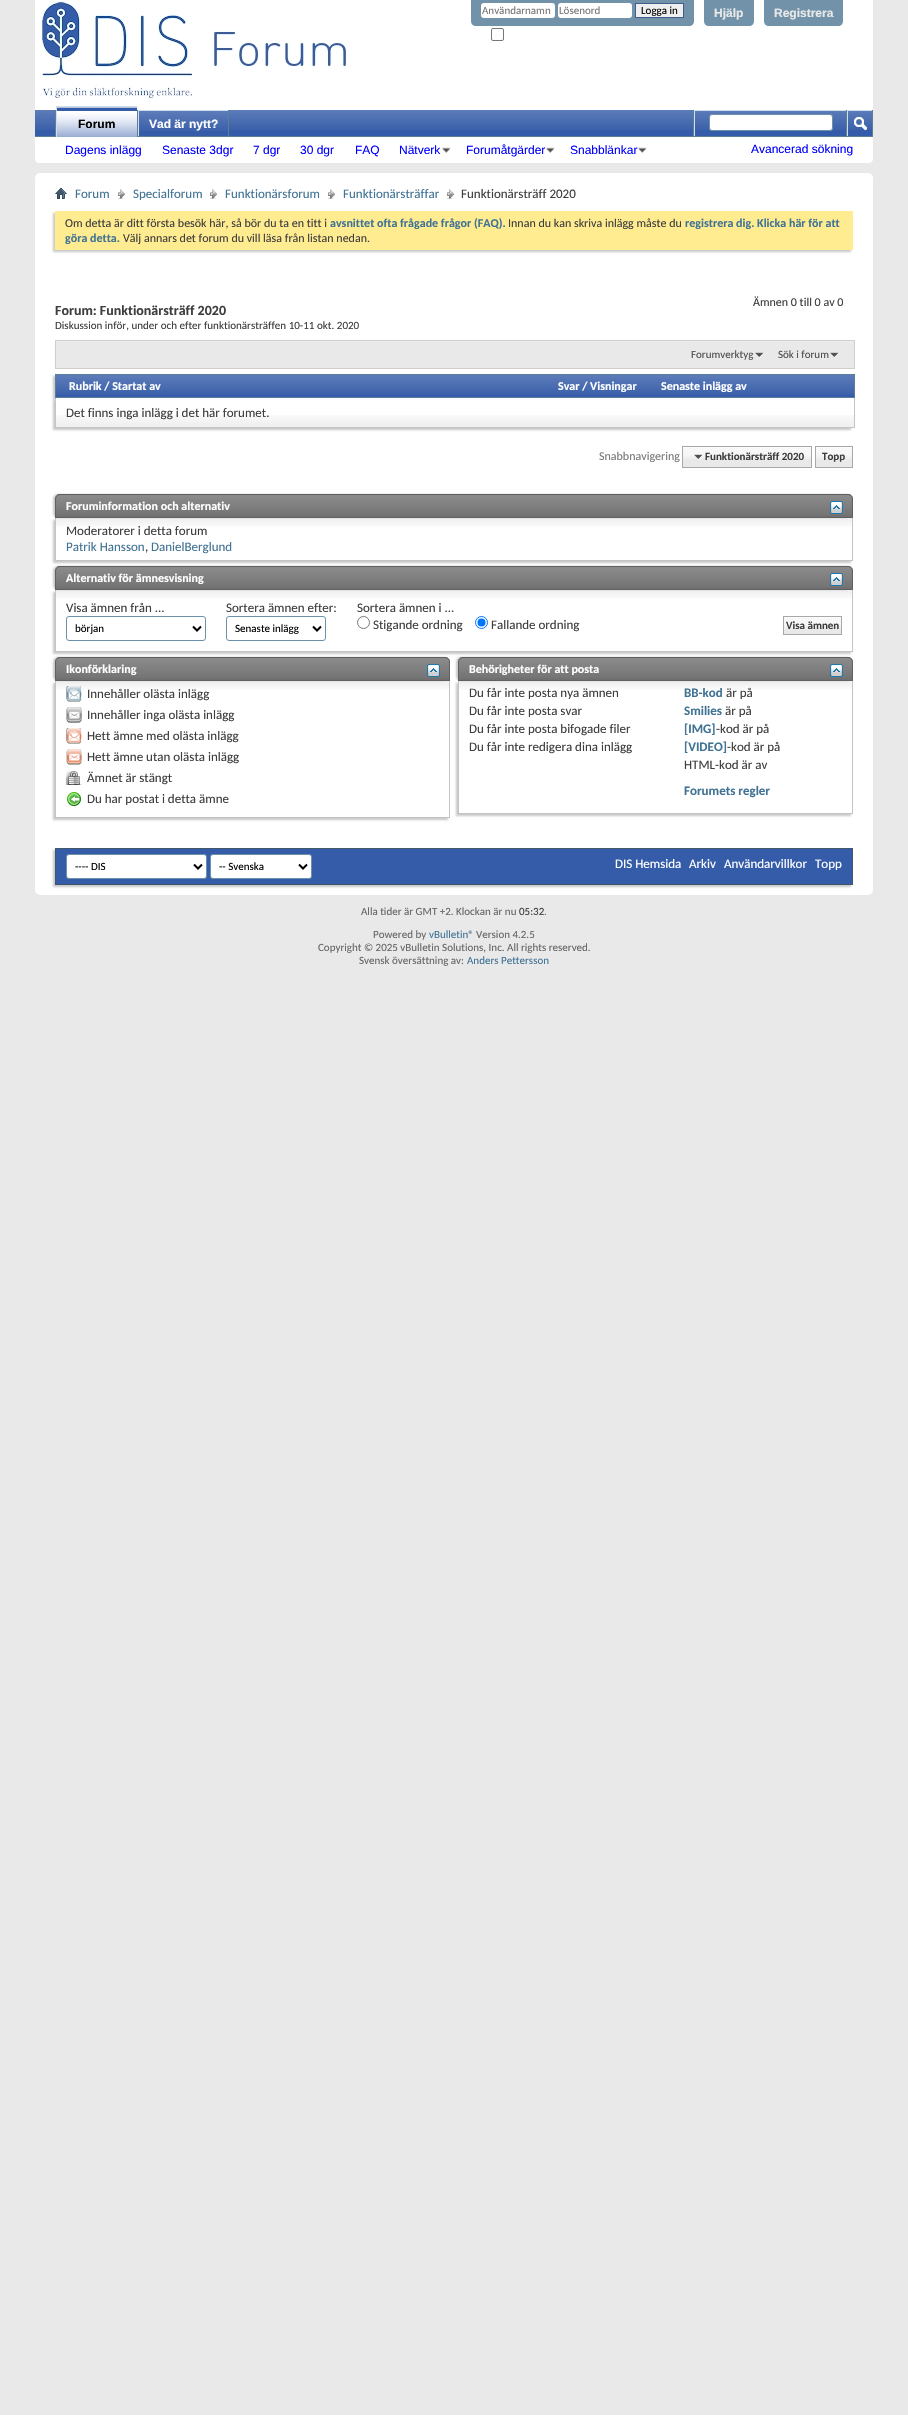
#include "include/core/SkBlurTypes.h"
#include "include/core/SkCanvas.h"
#include "include/core/SkData.h"
#include "include/core/SkFont.h"
#include "include/core/SkFontMgr.h"
#include "include/core/SkImage.h"
#include "include/core/SkMaskFilter.h"
#include "include/core/SkPaint.h"
#include "include/core/SkPathBuilder.h"
#include "include/core/SkTextBlob.h"
#include "include/effects/SkDashPathEffect.h"
#include "include/effects/SkGradientShader.h"
#include "include/utils/SkParsePath.h"

extern sk_sp<SkFontMgr> fontMgr;

void draw(SkCanvas* canvas) {
    SkPaint p;
    p.setAntiAlias(true);
    auto font = [&](const char* family, int weight, float size, bool italic = false) {
        SkFontStyle style(weight, SkFontStyle::kNormal_Width,
            italic ? SkFontStyle::kItalic_Slant : SkFontStyle::kUpright_Slant);
        SkFont result(fontMgr->matchFamilyStyle(family, style), size);
        result.setSubpixel(true);
        return result;
    };
    auto drawPhoto = [&](const char* path, float l, float t, float r, float b) {
        auto image = SkImages::DeferredFromEncodedData(SkData::MakeFromFileName(path));
        canvas->drawImageRect(image, SkRect::MakeLTRB(l, t, r, b), SkSamplingOptions());
    };
    canvas->clear(0xFFE9E9E9);
    p.setColor(0xFFFFFFFF);
    canvas->drawPath(SkPathBuilder().moveTo(35, 0).lineTo(873, 0).lineTo(873, 158).cubicTo(873, 161, 871, 163, 868, 163).lineTo(40, 163).cubicTo(37, 163, 35, 161, 35, 158).close().detach(), p);
    drawPhoto("media/1.png", 41, 1, 347, 98);
    p.setColor(0xFF7192A8);
    canvas->drawPath(SkPathBuilder().moveTo(471, 0).lineTo(694, 0).lineTo(694, 21).cubicTo(694, 24, 692, 26, 689, 26).lineTo(476, 26).cubicTo(473, 26, 471, 24, 471, 21).close().detach(), p);
    p.setColor(0xFFFFFFFF);
    canvas->drawRoundRect(SkRect::MakeLTRB(481, 3, 555, 18), 3, 3, p);
    auto font1 = font("Carlito", 400, 11);
    p.setColor(0xFF777777);
    canvas->drawString("Användarnamn", 482, 14, font1, p);
    p.setColor(0xFFFFFFFF);
    canvas->drawRoundRect(SkRect::MakeLTRB(558, 3, 632, 18), 3, 3, p);
    p.setColor(0xFF777777);
    canvas->drawString("Lösenord", 559, 14, font1, p);
    p.setColor(0xFFEFEFEF);
    canvas->drawRect(SkRect::MakeLTRB(635.5f, 3.5f, 683.5f, 17.5f), p);
    p.setStyle(SkPaint::kStroke_Style);
    p.setStrokeWidth(1);
    p.setColor(0xFF415D8D);
    canvas->drawRect(SkRect::MakeLTRB(635.5f, 3.5f, 683.5f, 17.5f), p);
    p.setStyle(SkPaint::kFill_Style);
    p.setColor(0xFF000000);
    canvas->drawString("Logga in", 641, 14, font1, p);
    p.setStyle(SkPaint::kStroke_Style);
    p.setColor(0xFF767676);
    canvas->drawRoundRect(SkRect::MakeLTRB(491.5f, 28.5f, 503.5f, 40.5f), 1.5f, 1.5f, p);
    p.setStyle(SkPaint::kFill_Style);
    p.setColor(0xFF7192A8);
    canvas->drawPath(SkPathBuilder().moveTo(704, 0).lineTo(754, 0).lineTo(754, 21).cubicTo(754, 24, 752, 26, 749, 26).lineTo(709, 26).cubicTo(706, 26, 704, 24, 704, 21).close().detach(), p);
    auto font2 = font("Liberation Sans", 700, 12);
    p.setColor(0xFFE9E9E9);
    canvas->drawString("Hjälp", 714, 17, font2, p);
    p.setColor(0xFF7192A8);
    canvas->drawPath(SkPathBuilder().moveTo(764, 0).lineTo(843, 0).lineTo(843, 21).cubicTo(843, 24, 841, 26, 838, 26).lineTo(769, 26).cubicTo(766, 26, 764, 24, 764, 21).close().detach(), p);
    p.setColor(0xFFE9E9E9);
    canvas->drawString("Registrera", 774, 17, font2, p);
    p.setColor(0xFFFFFFFF);
    canvas->drawPath(SkPathBuilder().moveTo(35, 110).lineTo(873, 110).lineTo(873, 158).cubicTo(873, 161, 871, 163, 868, 163).lineTo(40, 163).cubicTo(37, 163, 35, 161, 35, 158).close().detach(), p);
    p.setColor(0xFF355CA8);
    canvas->drawRect(SkRect::MakeLTRB(35, 110, 872, 136), p);
    drawPhoto("media/2.png", 35, 110, 872, 130);
    {
        const struct { float l, t, r, b; SkColor color; } items[] = {
            {137, 110, 138, 136, 0xFF5A7F97},
            {55, 110, 56, 136, 0xFF5A7F97},
            {228, 110, 229, 137, 0xFF5A7F97},
            {138, 110, 228, 111, 0xFFCEDFEB},
            {138, 110, 139, 137, 0xFFCEDFEB},
            {35, 136, 873, 137, 0xFF5A7F97},
            {57, 107, 137, 137, 0xFF355CA8},
        };
        for (auto [l, t, r, b, color] : items) {
            p.setColor(color);
            canvas->drawRect(SkRect::MakeLTRB(l, t, r, b), p);
        }
    }
    drawPhoto("media/3.png", 57, 107, 137, 137);
    p.setColor(0xFFCEDFEB);
    canvas->drawRect(SkRect::MakeLTRB(56, 106, 137, 107), p);
    canvas->drawRect(SkRect::MakeLTRB(56, 106, 57, 137), p);
    p.setColor(0xFF000000);
    canvas->drawString("Forum", 78, 128, font2, p);
    auto font3 = font("Liberation Sans", 400, 12);
    p.setColor(0xFF0000FF);
    {
        const struct { const char* s; float x, y; } items[] = {
            {"Dagens inlägg", 65, 154},
            {"Senaste 3dgr", 162, 154},
            {"7 dgr", 253, 154},
            {"30 dgr", 300, 154},
            {"FAQ", 355, 154},
            {"Nätverk", 399, 154},
        };
        for (auto [s, x, y] : items) {
            canvas->drawString(s, x, y, font3, p);
        }
    }
    drawPhoto("media/4.png", 442, 147, 451, 153);
    canvas->drawString("Forumåtgärder", 466, 154, font3, p);
    drawPhoto("media/4.png", 546, 147, 555, 153);
    canvas->drawString("Snabblänkar", 570, 154, font3, p);
    drawPhoto("media/4.png", 638, 147, 647, 153);
    p.setColor(0xFF355CA8);
    canvas->drawRect(SkRect::MakeLTRB(139, 111, 228, 130), p);
    drawPhoto("media/5.png", 139, 111, 228, 131);
    p.setColor(0xFFFFFFFF);
    canvas->drawString("Vad är nytt?", 149, 128, font2, p);
    {
        const struct { float l, t, r, b; SkColor color; } items[] = {
            {693, 110, 694, 136, 0xFF5A7F97},
            {694, 110, 846, 111, 0xFFCEDFEB},
            {694, 110, 695, 136, 0xFFCEDFEB},
        };
        for (auto [l, t, r, b, color] : items) {
            p.setColor(color);
            canvas->drawRect(SkRect::MakeLTRB(l, t, r, b), p);
        }
    }
    p.setColor(0xFFFFFFFF);
    canvas->drawRoundRect(SkRect::MakeLTRB(709.5f, 114.5f, 832.5f, 130.5f), 2.5f, 2.5f, p);
    p.setStyle(SkPaint::kStroke_Style);
    p.setColor(0xFF6B91AB);
    canvas->drawRoundRect(SkRect::MakeLTRB(709.5f, 114.5f, 832.5f, 130.5f), 2.5f, 2.5f, p);
    p.setStyle(SkPaint::kFill_Style);
    {
        const struct { float l, t, r, b; SkColor color; } items[] = {
            {872, 110, 873, 136, 0xFF5A7F97},
            {846, 110, 847, 136, 0xFF5A7F97},
            {847, 110, 872, 111, 0xFFCEDFEB},
            {847, 110, 848, 136, 0xFFCEDFEB},
        };
        for (auto [l, t, r, b, color] : items) {
            p.setColor(color);
            canvas->drawRect(SkRect::MakeLTRB(l, t, r, b), p);
        }
    }
    drawPhoto("media/6.png", 854, 117, 867, 131);
    p.setColor(0xFF0000FF);
    canvas->drawString("Avancerad sökning", 751, 153, font3, p);
    p.setColor(0xFFFFFFFF);
    canvas->drawRoundRect(SkRect::MakeLTRB(35, 173, 873, 895), 5, 5, p);
    drawPhoto("media/7.png", 55, 188, 67, 199);
    drawPhoto("media/8.png", 118, 189, 125, 199);
    auto font4 = font("Carlito", 400, 13);
    p.setColor(0xFF417394);
    canvas->drawString("Forum", 75, 198, font4, p);
    drawPhoto("media/8.png", 210, 189, 217, 199);
    canvas->drawString("Specialforum", 133, 198, font4, p);
    drawPhoto("media/8.png", 328, 189, 335, 199);
    canvas->drawString("Funktionärsforum", 225, 198, font4, p);
    drawPhoto("media/8.png", 447, 189, 454, 199);
    canvas->drawString("Funktionärsträffar", 343, 198, font4, p);
    p.setColor(0xFF3E3E3E);
    canvas->drawString("Funktionärsträff 2020", 461, 198, font4, p);
    p.setColor(0xFFC8C8C8);
    p.setMaskFilter(SkMaskFilter::MakeBlur(kNormal_SkBlurStyle, 1));
    canvas->drawRect(SkRect::MakeLTRB(53, 213, 851, 252), p);
    p.setMaskFilter(nullptr);
    p.setColor(0xFFFFEB90);
    canvas->drawRect(SkRect::MakeLTRB(55, 211, 853, 250), p);
    auto font5 = font("Carlito", 400, 12);
    p.setColor(0xFF3E3E3E);
    canvas->drawString("Om detta är ditt första besök här, så bör du ta en titt i", 65, 227, font5, p);
    auto font6 = font("Carlito", 700, 12);
    p.setColor(0xFF417394);
    canvas->drawString("avsnittet ofta frågade frågor (FAQ).", 330, 227, font6, p);
    p.setColor(0xFF3E3E3E);
    canvas->drawString("Innan du kan skriva inlägg måste du", 508, 227, font5, p);
    p.setColor(0xFF417394);
    canvas->drawString("registrera dig. Klicka här för att", 685, 227, font6, p);
    canvas->drawString("göra detta.", 65, 242, font6, p);
    p.setColor(0xFF3E3E3E);
    canvas->drawString("Välj annars det forum du vill läsa från listan nedan.", 123, 242, font5, p);
    canvas->drawString("Ämnen 0 till 0 av 0", 753, 306, font5, p);
    auto font7 = font("Carlito", 700, 14);
    canvas->drawString("Forum: Funktionärsträff 2020", 55, 315, font7, p);
    auto font8 = font("Carlito", 400, 11.05f);
    canvas->drawString("Diskussion inför, under och efter funktionärsträffen 10-11 okt. 2020", 55, 329, font8, p);
    p.setColor(0xFFE9E9E9);
    canvas->drawRect(SkRect::MakeLTRB(56, 342, 854, 368), p);
    p.setColor(0xFFEDEDED);
    canvas->drawRect(SkRect::MakeLTRB(55, 341, 855, 342), p);
    p.setStyle(SkPaint::kStroke_Style);
    p.setColor(0xFFCECECE);
    canvas->drawRect(SkRect::MakeLTRB(55.5f, 340.5f, 854.5f, 368.5f), p);
    drawPhoto("media/9.png", 755, 352, 764, 358);
    p.setStyle(SkPaint::kFill_Style);
    p.setColor(0xFF4E4E4E);
    canvas->drawString("Forumverktyg", 691, 358, font1, p);
    drawPhoto("media/9.png", 830, 352, 839, 358);
    canvas->drawString("Sök i forum", 778, 358, font1, p);
    p.setColor(0xFFC8C8C8);
    p.setMaskFilter(SkMaskFilter::MakeBlur(kNormal_SkBlurStyle, 1));
    canvas->drawRect(SkRect::MakeLTRB(53, 376, 853, 400), p);
    p.setMaskFilter(nullptr);
    p.setColor(0xFF355CA8);
    canvas->drawRect(SkRect::MakeLTRB(56, 375, 854, 397), p);
    drawPhoto("media/10.png", 56, 375, 854, 395);
    p.setStyle(SkPaint::kStroke_Style);
    p.setColor(0xFF5A7F97);
    canvas->drawRect(SkRect::MakeLTRB(55.5f, 374.5f, 854.5f, 397.5f), p);
    p.setStyle(SkPaint::kFill_Style);
    p.setColor(0xFFFFFFFF);
    {
        const struct { const char* s; float x, y; } items[] = {
            {"Rubrik / Startat av", 69, 390},
            {"Svar / Visningar", 558, 390},
            {"Senaste inlägg av", 661, 390},
        };
        for (auto [s, x, y] : items) {
            canvas->drawString(s, x, y, font6, p);
        }
    }
    p.setColor(0xFFC8C8C8);
    p.setMaskFilter(SkMaskFilter::MakeBlur(kNormal_SkBlurStyle, 1));
    canvas->drawRect(SkRect::MakeLTRB(53, 400, 851, 430), p);
    p.setMaskFilter(nullptr);
    p.setColor(0xFFFFFFFF);
    canvas->drawRect(SkRect::MakeLTRB(56, 398, 854, 427), p);
    drawPhoto("media/11.png", 56, 415, 854, 427);
    {
        const struct { float l, t, r, b; SkColor color; } items[] = {
            {854, 398, 855, 428, 0xFFC4C4C4},
            {55, 427, 855, 428, 0xFFC4C4C4},
            {55, 398, 56, 428, 0xFFC4C4C4},
        };
        for (auto [l, t, r, b, color] : items) {
            p.setColor(color);
            canvas->drawRect(SkRect::MakeLTRB(l, t, r, b), p);
        }
    }
    p.setColor(0xFF3E3E3E);
    canvas->drawString("Det finns inga inlägg i det här forumet.", 66, 417, font4, p);
    p.setColor(0xFF777777);
    canvas->drawString("Snabbnavigering", 599, 460, font5, p);
    p.setColor(0xFFE9E9E9);
    canvas->drawRect(SkRect::MakeLTRB(683, 447, 811, 467), p);
    drawPhoto("media/12.png", 683, 447, 811, 459);
    canvas->drawRect(SkRect::MakeLTRB(816, 447, 852, 467), p);
    drawPhoto("media/13.png", 816, 447, 852, 459);
    p.setStyle(SkPaint::kStroke_Style);
    p.setColor(0xFFA8A8A8);
    canvas->drawRect(SkRect::MakeLTRB(682.5f, 446.5f, 811.5f, 467.5f), p);
    drawPhoto("media/14.png", 694, 454, 703, 460);
    auto font9 = font("Carlito", 700, 11);
    p.setStyle(SkPaint::kFill_Style);
    p.setColor(0xFF3E3E3E);
    canvas->drawString("Funktionärsträff 2020", 705, 460, font9, p);
    p.setStyle(SkPaint::kStroke_Style);
    p.setColor(0xFFA8A8A8);
    canvas->drawRect(SkRect::MakeLTRB(815.5f, 446.5f, 852.5f, 467.5f), p);
    p.setStyle(SkPaint::kFill_Style);
    p.setColor(0xFF3E3E3E);
    canvas->drawString("Topp", 822, 460, font9, p);
    canvas->save();
    canvas->clipPath(SkPathBuilder(SkPathFillType::kEvenOdd).moveTo(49, 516).lineTo(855, 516).lineTo(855, 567).lineTo(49, 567).close().moveTo(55, 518).lineTo(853, 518).lineTo(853, 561).lineTo(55, 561).close().detach(), true);
    p.setColor(0xFFC8C8C8);
    p.setMaskFilter(SkMaskFilter::MakeBlur(kNormal_SkBlurStyle, 1));
    canvas->drawRect(SkRect::MakeLTRB(53, 520, 851, 563), p);
    p.setMaskFilter(nullptr);
    canvas->restore();
    drawPhoto("media/17.png", 56, 518, 852, 527);
    {
        const struct { float l, t, r, b; SkColor color; } items[] = {
            {852, 518, 853, 561, 0xFFC4C4C4},
            {55, 560, 853, 561, 0xFFC4C4C4},
            {55, 518, 56, 561, 0xFFC4C4C4},
        };
        for (auto [l, t, r, b, color] : items) {
            p.setColor(color);
            canvas->drawRect(SkRect::MakeLTRB(l, t, r, b), p);
        }
    }
    p.setColor(0xFFC8C8C8);
    p.setMaskFilter(SkMaskFilter::MakeBlur(kNormal_SkBlurStyle, 1));
    canvas->drawRoundRect(SkRect::MakeLTRB(53, 494, 851, 518), 5, 5, p);
    p.setMaskFilter(nullptr);
    p.setColor(0xFF707070);
    canvas->drawPath(SkPathBuilder().moveTo(60, 494).lineTo(848, 494).cubicTo(851, 494, 853, 496, 853, 499).lineTo(853, 518).lineTo(55, 518).lineTo(55, 499).cubicTo(55, 496, 57, 494, 60, 494).close().detach(), p);
    drawPhoto("media/15.png", 55, 495, 853, 515);
    p.setStyle(SkPaint::kStroke_Style);
    p.setColor(0xFF606060);
    canvas->drawPath(SkPathBuilder().moveTo(60, 494.5f).lineTo(848, 494.5f).cubicTo(850.5f, 494.5f, 852.5f, 496.5f, 852.5f, 499).lineTo(852.5f, 517.5f).lineTo(55.5f, 517.5f).lineTo(55.5f, 499).cubicTo(55.5f, 496.5f, 57.5f, 494.5f, 60, 494.5f).close().detach(), p);
    p.setStyle(SkPaint::kFill_Style);
    p.setColor(0xFFFFFFFF);
    canvas->drawString("Foruminformation och alternativ", 66, 510, font6, p);
    drawPhoto("media/16.png", 830, 501, 843, 514);
    p.setColor(0xFF3E3E3E);
    canvas->drawString("Moderatorer i detta forum", 66, 535, font4, p);
    p.setColor(0xFF417394);
    canvas->drawString("Patrik Hansson", 66, 551, font4, p);
    p.setColor(0xFF3E3E3E);
    canvas->drawString(",", 145, 551, font4, p);
    p.setColor(0xFF417394);
    canvas->drawString("DanielBerglund", 151, 551, font4, p);
    canvas->save();
    canvas->clipPath(SkPathBuilder(SkPathFillType::kEvenOdd).moveTo(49, 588).lineTo(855, 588).lineTo(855, 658).lineTo(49, 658).close().moveTo(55, 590).lineTo(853, 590).lineTo(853, 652).lineTo(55, 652).close().detach(), true);
    p.setColor(0xFFC8C8C8);
    p.setMaskFilter(SkMaskFilter::MakeBlur(kNormal_SkBlurStyle, 1));
    canvas->drawRect(SkRect::MakeLTRB(53, 592, 851, 654), p);
    p.setMaskFilter(nullptr);
    canvas->restore();
    drawPhoto("media/17.png", 56, 590, 852, 599);
    {
        const struct { float l, t, r, b; SkColor color; } items[] = {
            {852, 590, 853, 652, 0xFFC4C4C4},
            {55, 651, 853, 652, 0xFFC4C4C4},
            {55, 590, 56, 652, 0xFFC4C4C4},
        };
        for (auto [l, t, r, b, color] : items) {
            p.setColor(color);
            canvas->drawRect(SkRect::MakeLTRB(l, t, r, b), p);
        }
    }
    p.setColor(0xFFC8C8C8);
    p.setMaskFilter(SkMaskFilter::MakeBlur(kNormal_SkBlurStyle, 1));
    canvas->drawRoundRect(SkRect::MakeLTRB(53, 566, 851, 590), 5, 5, p);
    p.setMaskFilter(nullptr);
    p.setColor(0xFF707070);
    canvas->drawPath(SkPathBuilder().moveTo(60, 566).lineTo(848, 566).cubicTo(851, 566, 853, 568, 853, 571).lineTo(853, 590).lineTo(55, 590).lineTo(55, 571).cubicTo(55, 568, 57, 566, 60, 566).close().detach(), p);
    drawPhoto("media/15.png", 55, 567, 853, 587);
    p.setStyle(SkPaint::kStroke_Style);
    p.setColor(0xFF606060);
    canvas->drawPath(SkPathBuilder().moveTo(60, 566.5f).lineTo(848, 566.5f).cubicTo(850.5f, 566.5f, 852.5f, 568.5f, 852.5f, 571).lineTo(852.5f, 589.5f).lineTo(55.5f, 589.5f).lineTo(55.5f, 571).cubicTo(55.5f, 568.5f, 57.5f, 566.5f, 60, 566.5f).close().detach(), p);
    p.setStyle(SkPaint::kFill_Style);
    p.setColor(0xFFFFFFFF);
    canvas->drawString("Alternativ för ämnesvisning", 66, 582, font6, p);
    drawPhoto("media/16.png", 830, 573, 843, 586);
    p.setColor(0xFF3E3E3E);
    canvas->drawString("Visa ämnen från ...", 66, 612, font4, p);
    p.setStyle(SkPaint::kStroke_Style);
    p.setColor(0xFF6B91AB);
    canvas->drawRoundRect(SkRect::MakeLTRB(66.5f, 616.5f, 205.5f, 640.5f), 2.5f, 2.5f, p);
    p.setStrokeWidth(2);
    p.setColor(0xFF000000);
    canvas->drawPath(SkPathBuilder().moveTo(193, 626.5f).lineTo(197, 630.5f).lineTo(201, 626.5f).detach(), p);
    p.setStyle(SkPaint::kFill_Style);
    canvas->drawString("början", 75, 632, font1, p);
    p.setColor(0xFF3E3E3E);
    canvas->drawString("Sortera ämnen efter:", 226, 612, font4, p);
    p.setStyle(SkPaint::kStroke_Style);
    p.setStrokeWidth(1);
    p.setColor(0xFF6B91AB);
    canvas->drawRoundRect(SkRect::MakeLTRB(226.5f, 616.5f, 325.5f, 640.5f), 2.5f, 2.5f, p);
    p.setStrokeWidth(2);
    p.setColor(0xFF000000);
    canvas->drawPath(SkPathBuilder().moveTo(313, 626.5f).lineTo(317, 630.5f).lineTo(321, 626.5f).detach(), p);
    p.setStyle(SkPaint::kFill_Style);
    canvas->drawString("Senaste inlägg", 235, 632, font1, p);
    p.setColor(0xFF3E3E3E);
    canvas->drawString("Sortera ämnen i ...", 357, 612, font4, p);
    p.setStyle(SkPaint::kStroke_Style);
    p.setStrokeWidth(1);
    p.setColor(0xFF767676);
    canvas->drawCircle(363.5f, 622.5f, 6, p);
    p.setStyle(SkPaint::kFill_Style);
    p.setColor(0xFF3E3E3E);
    canvas->drawString("Stigande ordning", 373, 629, font4, p);
    p.setStyle(SkPaint::kStroke_Style);
    p.setColor(0xFF0075FF);
    canvas->drawCircle(481.5f, 622.5f, 6, p);
    p.setStyle(SkPaint::kFill_Style);
    canvas->drawCircle(481.5f, 622.5f, 4, p);
    p.setColor(0xFF3E3E3E);
    canvas->drawString("Fallande ordning", 491, 629, font4, p);
    p.setColor(0xFFE9E9E9);
    canvas->drawRect(SkRect::MakeLTRB(784, 617, 841, 634), p);
    drawPhoto("media/18.png", 784, 617, 841, 629);
    p.setStyle(SkPaint::kStroke_Style);
    p.setColor(0xFFA8A8A8);
    canvas->drawRect(SkRect::MakeLTRB(783.5f, 616.5f, 841.5f, 634.5f), p);
    p.setStyle(SkPaint::kFill_Style);
    p.setColor(0xFF3E3E3E);
    canvas->drawString("Visa ämnen", 786, 629, font9, p);
    canvas->save();
    canvas->clipPath(SkPathBuilder(SkPathFillType::kEvenOdd).moveTo(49, 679).lineTo(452, 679).lineTo(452, 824).lineTo(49, 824).close().moveTo(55, 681).lineTo(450, 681).lineTo(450, 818).lineTo(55, 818).close().detach(), true);
    p.setColor(0xFFC8C8C8);
    p.setMaskFilter(SkMaskFilter::MakeBlur(kNormal_SkBlurStyle, 1));
    canvas->drawRect(SkRect::MakeLTRB(53, 683, 448, 820), p);
    p.setMaskFilter(nullptr);
    canvas->restore();
    drawPhoto("media/20.png", 56, 681, 449, 690);
    {
        const struct { float l, t, r, b; SkColor color; } items[] = {
            {449, 681, 450, 818, 0xFFC4C4C4},
            {55, 817, 450, 818, 0xFFC4C4C4},
            {55, 681, 56, 818, 0xFFC4C4C4},
        };
        for (auto [l, t, r, b, color] : items) {
            p.setColor(color);
            canvas->drawRect(SkRect::MakeLTRB(l, t, r, b), p);
        }
    }
    p.setColor(0xFFC8C8C8);
    p.setMaskFilter(SkMaskFilter::MakeBlur(kNormal_SkBlurStyle, 1));
    canvas->drawRoundRect(SkRect::MakeLTRB(53, 657, 448, 681), 5, 5, p);
    p.setMaskFilter(nullptr);
    p.setColor(0xFF707070);
    canvas->drawPath(SkPathBuilder().moveTo(60, 657).lineTo(445, 657).cubicTo(448, 657, 450, 659, 450, 662).lineTo(450, 681).lineTo(55, 681).lineTo(55, 662).cubicTo(55, 659, 57, 657, 60, 657).close().detach(), p);
    drawPhoto("media/19.png", 55, 658, 450, 678);
    p.setStyle(SkPaint::kStroke_Style);
    p.setColor(0xFF606060);
    canvas->drawPath(SkPathBuilder().moveTo(60, 657.5f).lineTo(445, 657.5f).cubicTo(447.5f, 657.5f, 449.5f, 659.5f, 449.5f, 662).lineTo(449.5f, 680.5f).lineTo(55.5f, 680.5f).lineTo(55.5f, 662).cubicTo(55.5f, 659.5f, 57.5f, 657.5f, 60, 657.5f).close().detach(), p);
    p.setStyle(SkPaint::kFill_Style);
    p.setColor(0xFFFFFFFF);
    canvas->drawString("Ikonförklaring", 66, 673, font6, p);
    drawPhoto("media/16.png", 427, 664, 440, 677);
    drawPhoto("media/21.png", 66, 686, 82, 702);
    p.setColor(0xFF3E3E3E);
    canvas->drawString("Innehåller olästa inlägg", 87, 698, font4, p);
    drawPhoto("media/22.png", 66, 707, 82, 723);
    canvas->drawString("Innehåller inga olästa inlägg", 87, 719, font4, p);
    drawPhoto("media/23.png", 66, 728, 82, 744);
    canvas->drawString("Hett ämne med olästa inlägg", 87, 740, font4, p);
    drawPhoto("media/24.png", 66, 749, 82, 765);
    canvas->drawString("Hett ämne utan olästa inlägg", 87, 761, font4, p);
    drawPhoto("media/25.png", 66, 770, 82, 785);
    canvas->drawString("Ämnet är stängt", 87, 782, font4, p);
    drawPhoto("media/26.png", 67, 792, 81, 806);
    canvas->drawString("Du har postat i detta ämne", 87, 803, font4, p);
    canvas->save();
    canvas->clipPath(SkPathBuilder(SkPathFillType::kEvenOdd).moveTo(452, 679).lineTo(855, 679).lineTo(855, 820).lineTo(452, 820).close().moveTo(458, 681).lineTo(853, 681).lineTo(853, 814).lineTo(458, 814).close().detach(), true);
    p.setColor(0xFFC8C8C8);
    p.setMaskFilter(SkMaskFilter::MakeBlur(kNormal_SkBlurStyle, 1));
    canvas->drawRect(SkRect::MakeLTRB(456, 683, 851, 816), p);
    p.setMaskFilter(nullptr);
    canvas->restore();
    drawPhoto("media/20.png", 459, 681, 852, 690);
    {
        const struct { float l, t, r, b; SkColor color; } items[] = {
            {852, 681, 853, 814, 0xFFC4C4C4},
            {458, 813, 853, 814, 0xFFC4C4C4},
            {458, 681, 459, 814, 0xFFC4C4C4},
        };
        for (auto [l, t, r, b, color] : items) {
            p.setColor(color);
            canvas->drawRect(SkRect::MakeLTRB(l, t, r, b), p);
        }
    }
    p.setColor(0xFFC8C8C8);
    p.setMaskFilter(SkMaskFilter::MakeBlur(kNormal_SkBlurStyle, 1));
    canvas->drawRoundRect(SkRect::MakeLTRB(456, 657, 851, 681), 5, 5, p);
    p.setMaskFilter(nullptr);
    p.setColor(0xFF707070);
    canvas->drawPath(SkPathBuilder().moveTo(463, 657).lineTo(848, 657).cubicTo(851, 657, 853, 659, 853, 662).lineTo(853, 681).lineTo(458, 681).lineTo(458, 662).cubicTo(458, 659, 460, 657, 463, 657).close().detach(), p);
    drawPhoto("media/19.png", 458, 658, 853, 678);
    p.setStyle(SkPaint::kStroke_Style);
    p.setColor(0xFF606060);
    canvas->drawPath(SkPathBuilder().moveTo(463, 657.5f).lineTo(848, 657.5f).cubicTo(850.5f, 657.5f, 852.5f, 659.5f, 852.5f, 662).lineTo(852.5f, 680.5f).lineTo(458.5f, 680.5f).lineTo(458.5f, 662).cubicTo(458.5f, 659.5f, 460.5f, 657.5f, 463, 657.5f).close().detach(), p);
    p.setStyle(SkPaint::kFill_Style);
    p.setColor(0xFFFFFFFF);
    canvas->drawString("Behörigheter för att posta", 469, 673, font6, p);
    drawPhoto("media/16.png", 830, 664, 843, 677);
    p.setColor(0xFF3E3E3E);
    {
        const struct { const char* s; float x, y; } items[] = {
            {"Du får inte posta nya ämnen", 469, 697},
            {"Du får inte posta svar", 469, 715},
            {"Du får inte posta bifogade filer", 469, 733},
            {"Du får inte redigera dina inlägg", 469, 751},
        };
        for (auto [s, x, y] : items) {
            canvas->drawString(s, x, y, font4, p);
        }
    }
    auto font10 = font("Carlito", 700, 13);
    p.setColor(0xFF417394);
    canvas->drawString("BB-kod", 684, 697, font10, p);
    p.setColor(0xFF3E3E3E);
    canvas->drawString("är på", 726, 697, font4, p);
    p.setColor(0xFF417394);
    canvas->drawString("Smilies", 684, 715, font10, p);
    p.setColor(0xFF3E3E3E);
    canvas->drawString("är på", 725, 715, font4, p);
    p.setColor(0xFF417394);
    canvas->drawString("[IMG]", 684, 733, font10, p);
    p.setColor(0xFF3E3E3E);
    canvas->drawString("-kod är på", 716, 733, font4, p);
    p.setColor(0xFF417394);
    canvas->drawString("[VIDEO]", 684, 751, font10, p);
    p.setColor(0xFF3E3E3E);
    canvas->drawString("-kod är på", 727, 751, font4, p);
    canvas->drawString("HTML-kod är av", 684, 769, font4, p);
    p.setColor(0xFF417394);
    canvas->drawString("Forumets regler", 684, 795, font10, p);
    p.setColor(0xFFC8C8C8);
    p.setMaskFilter(SkMaskFilter::MakeBlur(kNormal_SkBlurStyle, 1));
    canvas->drawRect(SkRect::MakeLTRB(53, 850, 851, 887), p);
    p.setMaskFilter(nullptr);
    p.setColor(0xFF355CA8);
    canvas->drawRect(SkRect::MakeLTRB(55.5f, 848.5f, 852.5f, 884.5f), p);
    p.setStyle(SkPaint::kStroke_Style);
    p.setColor(0xFF425769);
    canvas->drawRect(SkRect::MakeLTRB(55.5f, 848.5f, 852.5f, 884.5f), p);
    p.setStyle(SkPaint::kFill_Style);
    p.setColor(0xFFFFFFFF);
    canvas->drawRoundRect(SkRect::MakeLTRB(66.5f, 854.5f, 206.5f, 878.5f), 2.5f, 2.5f, p);
    p.setStyle(SkPaint::kStroke_Style);
    p.setColor(0xFF6B91AB);
    canvas->drawRoundRect(SkRect::MakeLTRB(66.5f, 854.5f, 206.5f, 878.5f), 2.5f, 2.5f, p);
    p.setStrokeWidth(2);
    p.setColor(0xFF000000);
    canvas->drawPath(SkPathBuilder().moveTo(194, 864.5f).lineTo(198, 868.5f).lineTo(202, 864.5f).detach(), p);
    p.setStyle(SkPaint::kFill_Style);
    canvas->drawString("---- DIS", 75, 870, font1, p);
    p.setColor(0xFFFFFFFF);
    canvas->drawRoundRect(SkRect::MakeLTRB(210.5f, 854.5f, 311.5f, 878.5f), 2.5f, 2.5f, p);
    p.setStyle(SkPaint::kStroke_Style);
    p.setStrokeWidth(1);
    p.setColor(0xFF6B91AB);
    canvas->drawRoundRect(SkRect::MakeLTRB(210.5f, 854.5f, 311.5f, 878.5f), 2.5f, 2.5f, p);
    p.setStrokeWidth(2);
    p.setColor(0xFF000000);
    canvas->drawPath(SkPathBuilder().moveTo(299, 864.5f).lineTo(303, 868.5f).lineTo(307, 864.5f).detach(), p);
    p.setStyle(SkPaint::kFill_Style);
    canvas->drawString("-- Svenska", 219, 870, font1, p);
    p.setColor(0xFFFFFFFF);
    {
        const struct { const char* s; float x, y; } items[] = {
            {"DIS Hemsida", 615, 868},
            {"Arkiv", 689, 868},
            {"Användarvillkor", 724, 868},
            {"Topp", 815, 868},
        };
        for (auto [s, x, y] : items) {
            canvas->drawString(s, x, y, font4, p);
        }
    }
    p.setColor(0xFF666666);
    canvas->drawString("Alla tider är GMT +2. Klockan är nu", 361, 915, font1, p);
    p.setColor(0xFF3E3E3E);
    canvas->drawString("05:32", 519, 915, font1, p);
    p.setColor(0xFF666666);
    canvas->drawString(".", 544, 915, font1, p);
    canvas->drawString("Powered by", 373, 938, font1, p);
    p.setColor(0xFF417394);
    canvas->drawString("vBulletin®", 429, 938, font1, p);
    p.setColor(0xFF666666);
    {
        const struct { const char* s; float x, y; } items[] = {
            {"Version 4.2.5", 476, 938},
            {"Copyright © 2025 vBulletin Solutions, Inc. All rights reserved.", 318, 951},
            {"Svensk översättning av:", 359, 964},
        };
        for (auto [s, x, y] : items) {
            canvas->drawString(s, x, y, font1, p);
        }
    }
    p.setColor(0xFF417394);
    canvas->drawString("Anders Pettersson", 467, 964, font1, p);
}
